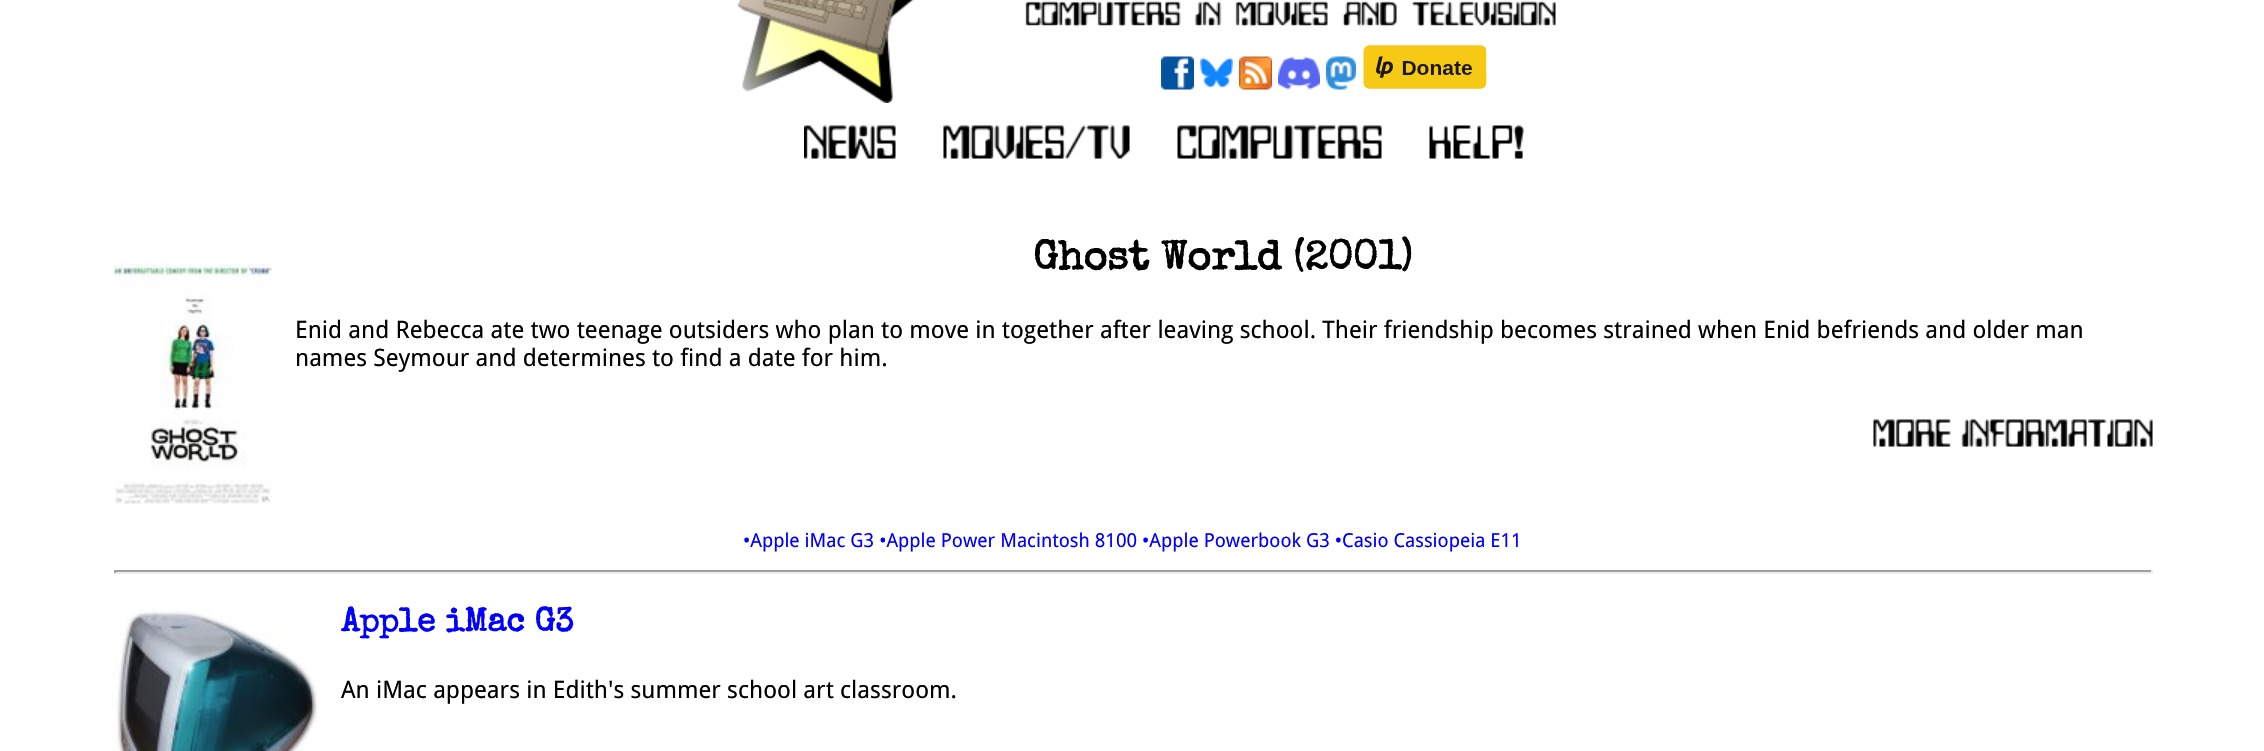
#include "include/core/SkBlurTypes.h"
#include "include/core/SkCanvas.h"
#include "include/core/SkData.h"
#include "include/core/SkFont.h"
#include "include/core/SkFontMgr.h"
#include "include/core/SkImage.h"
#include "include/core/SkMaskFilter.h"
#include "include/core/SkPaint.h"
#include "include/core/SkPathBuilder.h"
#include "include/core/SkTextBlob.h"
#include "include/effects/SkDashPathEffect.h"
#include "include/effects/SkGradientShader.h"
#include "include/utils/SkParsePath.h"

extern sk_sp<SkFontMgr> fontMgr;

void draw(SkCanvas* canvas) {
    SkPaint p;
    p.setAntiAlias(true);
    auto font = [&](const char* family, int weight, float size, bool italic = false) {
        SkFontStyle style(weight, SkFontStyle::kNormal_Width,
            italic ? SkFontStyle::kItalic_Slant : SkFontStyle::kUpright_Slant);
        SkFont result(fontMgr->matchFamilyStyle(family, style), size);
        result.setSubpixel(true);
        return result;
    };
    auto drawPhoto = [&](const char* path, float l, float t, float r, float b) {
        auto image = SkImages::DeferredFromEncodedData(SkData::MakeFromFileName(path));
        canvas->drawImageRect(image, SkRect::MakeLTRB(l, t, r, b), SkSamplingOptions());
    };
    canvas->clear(0xFFFFFFFF);
    drawPhoto("media/1.png", 737, 0, 1556, 103);
    drawPhoto("media/2.png", 1161, 56, 1194, 90);
    drawPhoto("media/3.png", 1200, 57, 1233, 89);
    drawPhoto("media/4.png", 1239, 56, 1272, 90);
    drawPhoto("media/5.png", 1278, 56, 1320, 90);
    drawPhoto("media/6.png", 1326, 56, 1356, 90);
    drawPhoto("media/7.png", 1363, 45, 1487, 89);
    drawPhoto("media/8.png", 804, 125, 896, 159);
    drawPhoto("media/9.png", 943, 125, 1130, 159);
    drawPhoto("media/10.png", 1177, 125, 1382, 159);
    drawPhoto("media/11.png", 1429, 125, 1524, 159);
    auto font1 = font("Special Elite", 700, 40.75f);
    p.setColor(0xFF000000);
    canvas->drawString("Ghost World (2001)", 1033, 269, font1, p);
    drawPhoto("media/12.png", 114, 263, 272, 504);
    auto font2 = font("Droid Sans", 400, 24);
    canvas->drawString("Enid and Rebecca ate two teenage outsiders who plan to move in together after leaving school. Their friendship becomes strained when Enid befriends and older man", 295, 338, font2, p);
    canvas->drawString("names Seymour and determines to find a date for him.", 295, 366, font2, p);
    drawPhoto("media/13.png", 1873, 419, 2153, 447);
    auto font3 = font("Droid Sans", 400, 19.2f);
    p.setColor(0xFF0000FF);
    canvas->drawString("•Apple iMac G3 •Apple Power Macintosh 8100 •Apple Powerbook G3 •Casio Cassiopeia E11", 743, 547, font3, p);
    {
        const struct { float l, t, r, b; SkColor color; } items[] = {
            {114, 570, 2153, 572, 0xFF9F9F9F},
            {2151, 570, 2153, 573, 0xFFEEEEEE},
            {114, 572, 2153, 574, 0xFFEEEEEE},
            {114, 570, 116, 573, 0xFF9F9F9F},
        };
        for (auto [l, t, r, b, color] : items) {
            p.setColor(color);
            canvas->drawRect(SkRect::MakeLTRB(l, t, r, b), p);
        }
    }
    drawPhoto("media/14.png", 114, 609, 318, 751);
    auto font4 = font("Special Elite", 700, 33.5f);
    p.setColor(0xFF0000FF);
    canvas->drawString("Apple iMac G3", 341, 631, font4, p);
    p.setColor(0xFF000000);
    canvas->drawString("An iMac appears in Edith's summer school art classroom.", 341, 698, font2, p);
}
